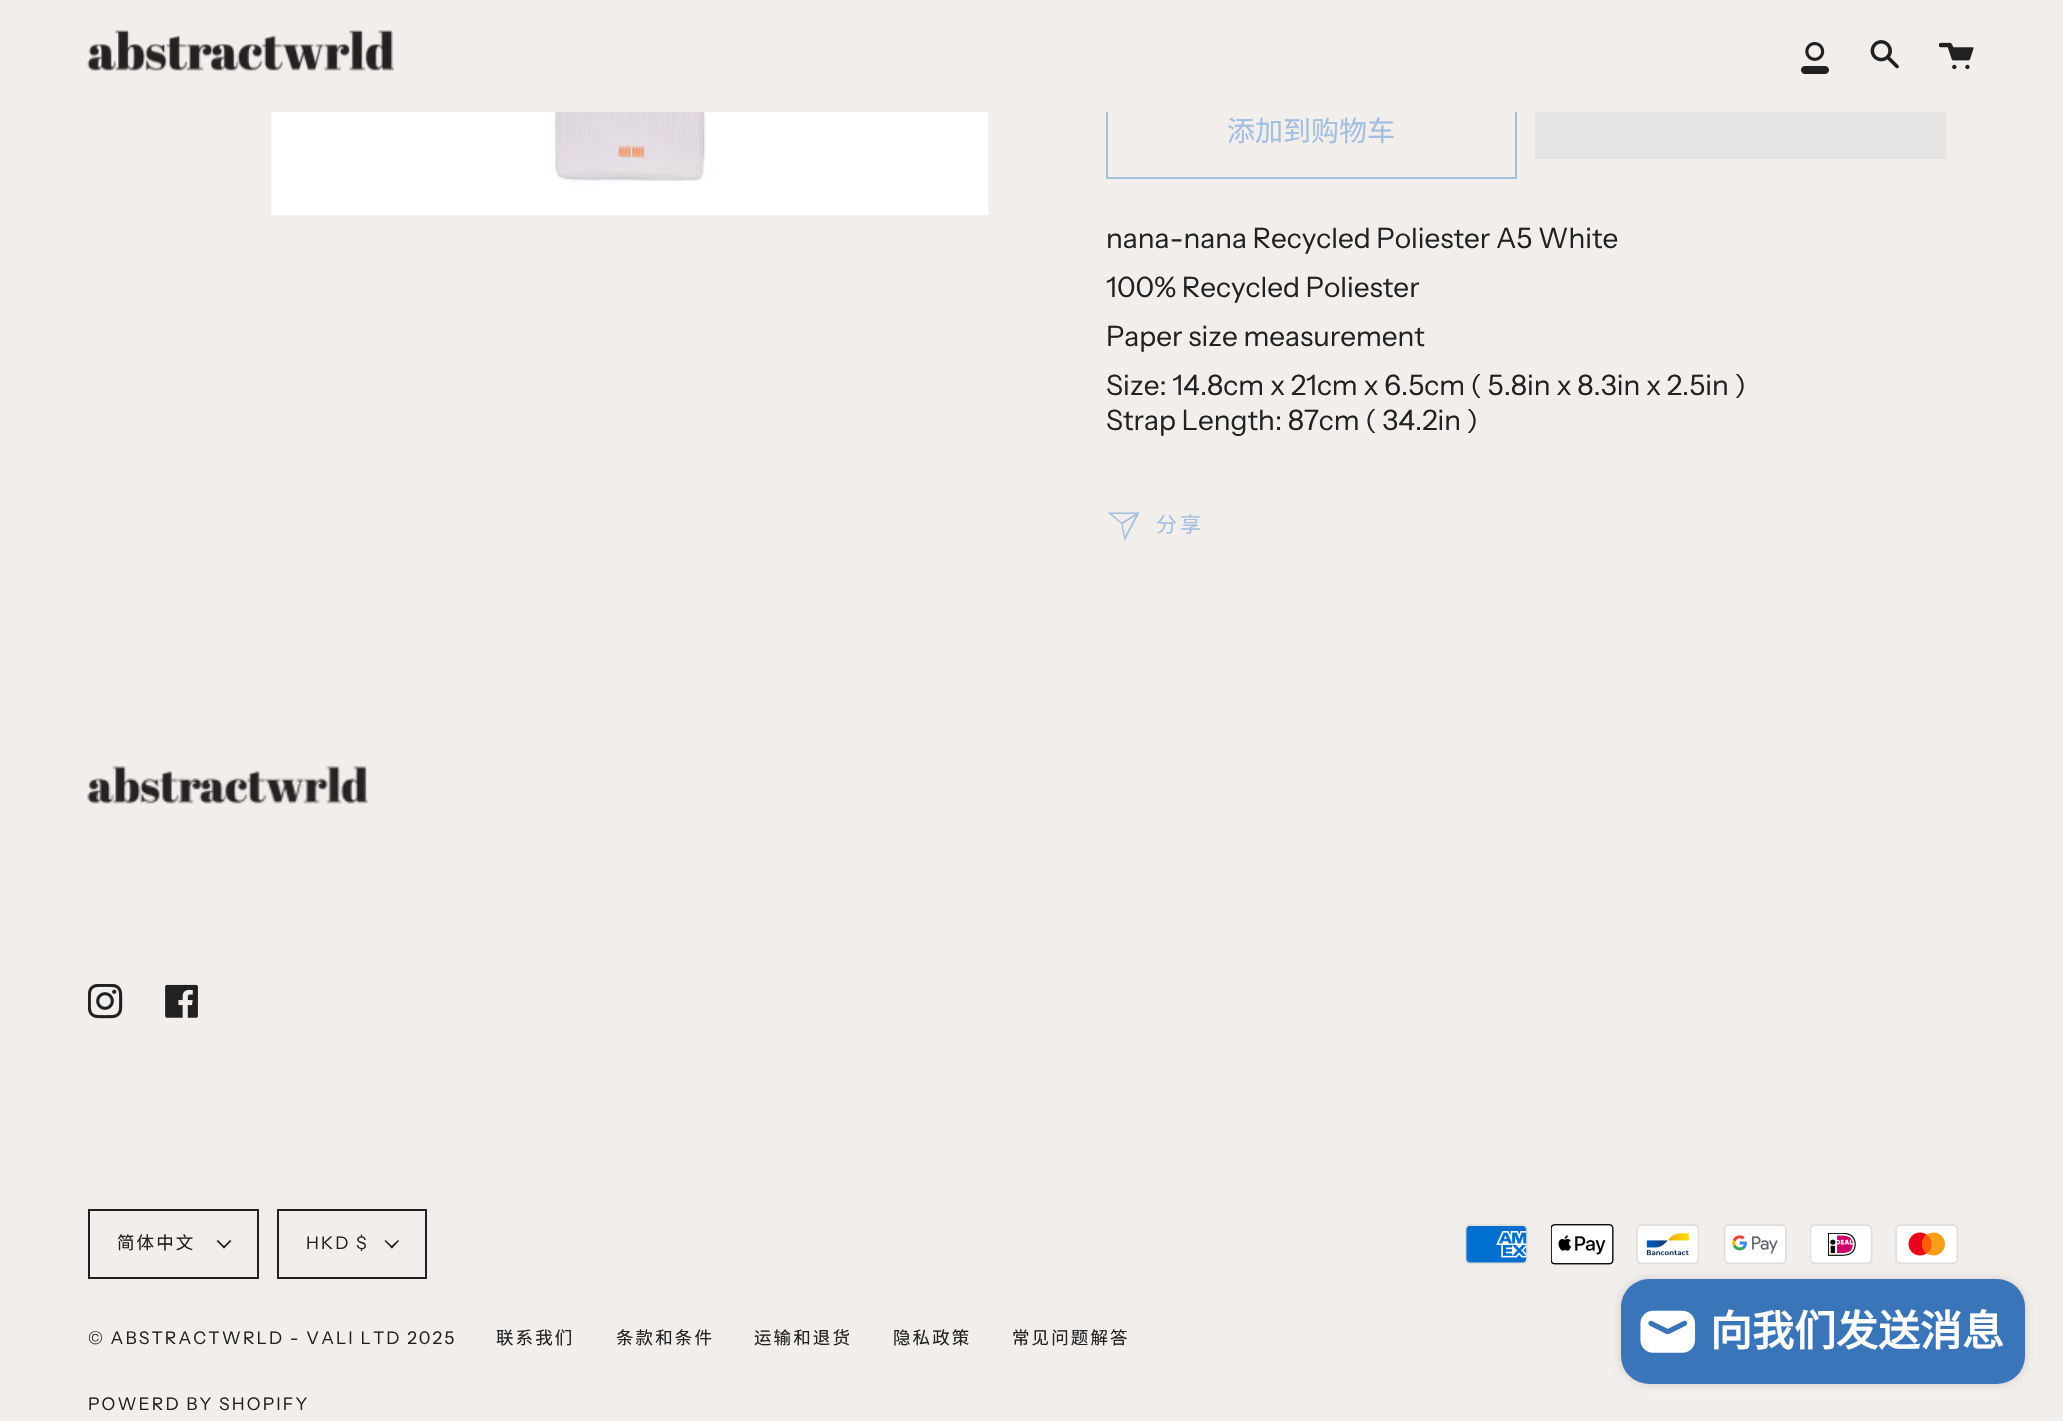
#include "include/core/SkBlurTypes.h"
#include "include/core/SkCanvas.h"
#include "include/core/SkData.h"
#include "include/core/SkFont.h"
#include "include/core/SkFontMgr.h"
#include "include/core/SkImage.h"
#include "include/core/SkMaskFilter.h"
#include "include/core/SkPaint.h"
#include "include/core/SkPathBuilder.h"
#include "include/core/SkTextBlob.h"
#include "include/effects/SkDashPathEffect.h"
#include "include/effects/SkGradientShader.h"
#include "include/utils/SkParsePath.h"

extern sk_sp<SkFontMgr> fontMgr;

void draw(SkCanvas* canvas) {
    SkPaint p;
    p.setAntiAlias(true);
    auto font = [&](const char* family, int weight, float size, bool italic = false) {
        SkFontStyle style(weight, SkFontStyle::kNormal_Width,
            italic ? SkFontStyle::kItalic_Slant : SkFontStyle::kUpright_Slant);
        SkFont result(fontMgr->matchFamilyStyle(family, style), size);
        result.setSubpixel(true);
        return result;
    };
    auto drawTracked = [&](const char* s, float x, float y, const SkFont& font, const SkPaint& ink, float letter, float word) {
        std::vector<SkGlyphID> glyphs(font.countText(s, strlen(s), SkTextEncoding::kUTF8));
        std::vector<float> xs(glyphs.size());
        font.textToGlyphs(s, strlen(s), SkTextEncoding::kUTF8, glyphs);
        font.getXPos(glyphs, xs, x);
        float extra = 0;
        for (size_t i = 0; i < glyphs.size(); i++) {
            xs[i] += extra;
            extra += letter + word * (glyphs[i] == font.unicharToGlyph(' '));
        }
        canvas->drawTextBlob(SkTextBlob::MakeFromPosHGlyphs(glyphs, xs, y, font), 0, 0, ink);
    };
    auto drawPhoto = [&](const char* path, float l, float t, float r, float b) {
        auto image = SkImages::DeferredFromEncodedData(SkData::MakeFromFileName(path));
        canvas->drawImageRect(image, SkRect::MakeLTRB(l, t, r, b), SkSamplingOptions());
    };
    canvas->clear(0xFFF1EEEB);
    p.setStyle(SkPaint::kStroke_Style);
    p.setStrokeWidth(2);
    p.setColor(0xFFA3BFDF);
    canvas->drawRect(SkRect::MakeLTRB(1107, 83, 1516, 178), p);
    p.setStyle(SkPaint::kFill_Style);
    p.setColor(0xFFF1EEEB);
    canvas->drawRect(SkRect::MakeLTRB(1106, 82, 1517, 112), p);
    drawPhoto("media/1.png", 87, 30, 394, 71);
    drawPhoto("media/2.png", 1801, 42, 1829, 74);
    drawPhoto("media/3.png", 1870, 40, 1899, 69);
    drawPhoto("media/4.png", 1939, 42, 1974, 70);
    drawPhoto("media/5.png", 271, 112, 989, 215);
    auto font1 = font("Noto Sans CJK SC", 400, 28);
    p.setColor(0xFFA3BFDF);
    canvas->drawString("添加到购物车", 1227, 141, font1, p);
    p.setColor(0xFFE6E4E3);
    canvas->drawRect(SkRect::MakeLTRB(1535, 112, 1946, 159), p);
    auto font2 = font("Instrument Sans", 400, 28);
    p.setColor(0xFF212121);
    {
        const struct { const char* s; float x, y; } items[] = {
            {"nana-nana Recycled Poliester A5 White", 1106, 248},
            {"100% Recycled Poliester", 1106, 297},
            {"Paper size measurement", 1106, 346},
            {"Size: 14.8cm x 21cm x 6.5cm ( 5.8in x 8.3in x 2.5in )", 1106, 395},
            {"Strap Length: 87cm ( 34.2in )", 1106, 430},
        };
        for (auto [s, x, y] : items) {
            canvas->drawString(s, x, y, font2, p);
        }
    }
    p.setColor(0xFFA3BFDF);
    canvas->drawPath(SkPathBuilder().moveTo(1139.5f, 512.5f).lineTo(1124.5f, 541).lineTo(1121, 523.5f).lineTo(1107.5f, 512.5f).close().moveTo(1135.5f, 514).lineTo(1112, 514).lineTo(1121.5f, 522.5f).close().moveTo(1136, 515.5f).lineTo(1122.5f, 524).lineTo(1125, 536).close().detach(), p);
    auto font3 = font("Noto Sans CJK SC", 400, 21);
    drawTracked("分享", 1156, 532, font3, p, 3, 0);
    drawPhoto("media/6.png", 87, 765, 368, 804);
    drawPhoto("media/7.png", 88, 984, 123, 1019);
    drawPhoto("media/8.png", 165, 984, 198, 1018);
    p.setStyle(SkPaint::kStroke_Style);
    p.setColor(0xFF212121);
    canvas->drawRect(SkRect::MakeLTRB(89, 1210, 258, 1278), p);
    auto font4 = font("Noto Sans CJK SC", 400, 17.5f);
    p.setStyle(SkPaint::kFill_Style);
    drawTracked("简体中文", 117, 1249, font4, p, 2.1f, 0);
    canvas->drawPath(SkPathBuilder().moveTo(223, 1247).lineTo(230, 1240).lineTo(231.5f, 1241).lineTo(224, 1248.5f).close().detach(), p);
    canvas->drawPath(SkPathBuilder().moveTo(216.5f, 1241).lineTo(218, 1240).lineTo(225, 1247).lineTo(224, 1248.5f).close().detach(), p);
    p.setStyle(SkPaint::kStroke_Style);
    canvas->drawRect(SkRect::MakeLTRB(278, 1210, 426, 1278), p);
    auto font5 = font("Instrument Sans", 400, 17.5f);
    p.setStyle(SkPaint::kFill_Style);
    drawTracked("HKD $", 306, 1249, font5, p, 2.1f, 0);
    canvas->drawPath(SkPathBuilder().moveTo(390.5f, 1247).lineTo(398, 1240).lineTo(399, 1241).lineTo(392, 1248.5f).close().detach(), p);
    canvas->drawPath(SkPathBuilder().moveTo(384.5f, 1241).lineTo(385.5f, 1240).lineTo(393, 1247).lineTo(392, 1248.5f).close().detach(), p);
    drawTracked("© ABSTRACTWRLD - VALI LTD 2025", 88, 1344, font5, p, 2.1f, 0);
    {
        const struct { const char* s; float x, y; } items[] = {
            {"联系我们", 496, 1344},
            {"条款和条件", 616, 1344},
            {"运输和退货", 754, 1344},
            {"隐私政策", 893, 1344},
            {"常见问题解答", 1012, 1344},
        };
        for (auto [s, x, y] : items) {
            drawTracked(s, x, y, font4, p, 2.1f, 0);
        }
    }
    drawTracked("POWERD BY SHOPIFY", 88, 1410, font5, p, 2.1f, 0);
    drawPhoto("media/9.png", 1465, 1224, 1528, 1264);
    drawPhoto("media/10.png", 1551, 1224, 1614, 1265);
    drawPhoto("media/11.png", 1636, 1224, 1699, 1264);
    drawPhoto("media/12.png", 1724, 1224, 1787, 1264);
    drawPhoto("media/13.png", 1810, 1224, 1873, 1264);
    drawPhoto("media/14.png", 1895, 1224, 1958, 1264);
    p.setColor(0x26000000);
    p.setMaskFilter(SkMaskFilter::MakeBlur(kNormal_SkBlurStyle, 4.5f));
    canvas->drawRoundRect(SkRect::MakeLTRB(1621, 1279, 2025, 1384), 28, 28, p);
    p.setMaskFilter(nullptr);
    p.setColor(0xFF3A75B9);
    canvas->drawRoundRect(SkRect::MakeLTRB(1621, 1279, 2025, 1384), 28, 28, p);
    drawPhoto("media/15.png", 1640, 1310, 1696, 1353);
    auto font6 = font("Noto Sans CJK SC", 700, 42);
    p.setColor(0xFFFFFFFF);
    canvas->drawString("向我们发送消息", 1710, 1346, font6, p);
}
